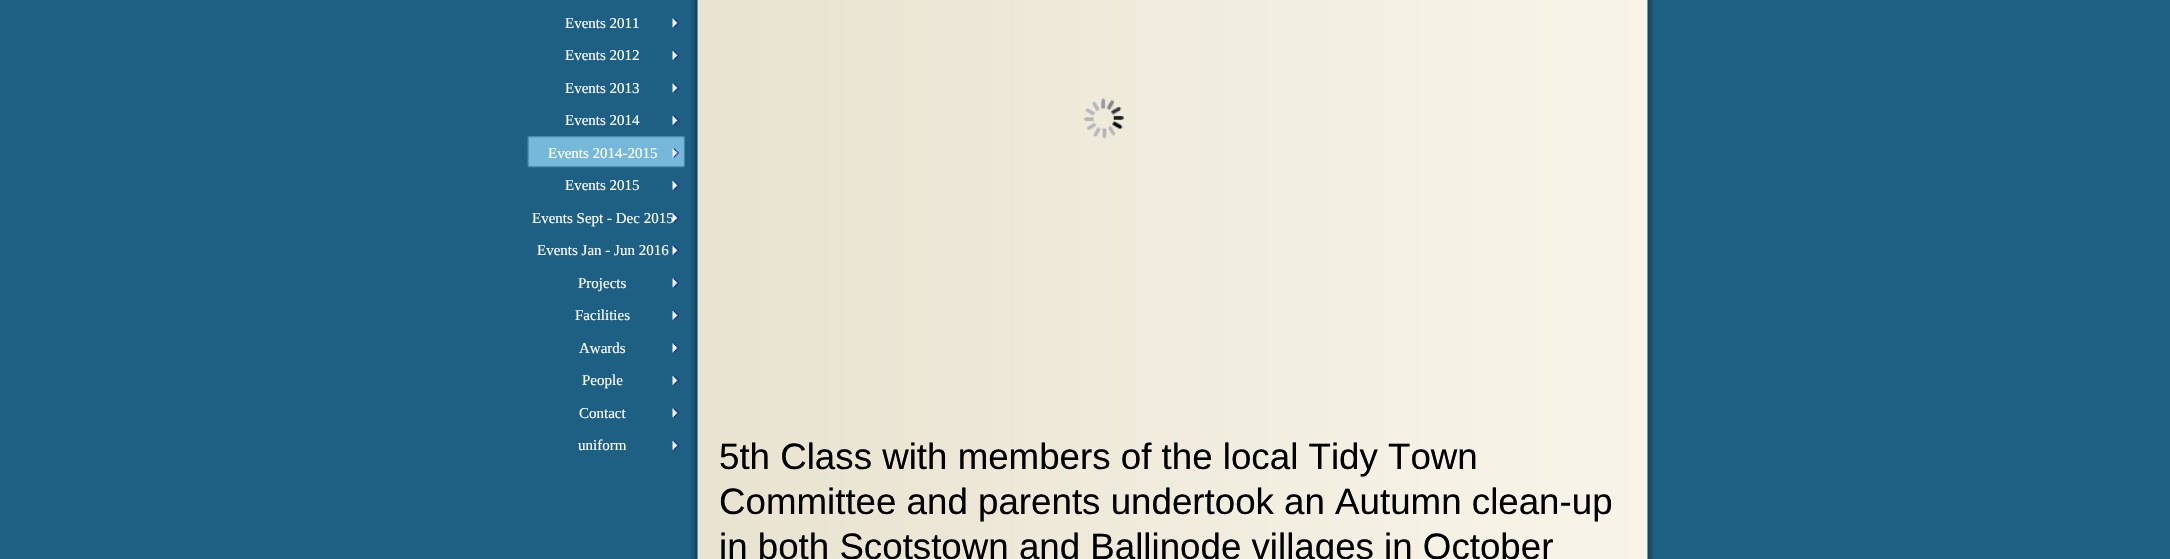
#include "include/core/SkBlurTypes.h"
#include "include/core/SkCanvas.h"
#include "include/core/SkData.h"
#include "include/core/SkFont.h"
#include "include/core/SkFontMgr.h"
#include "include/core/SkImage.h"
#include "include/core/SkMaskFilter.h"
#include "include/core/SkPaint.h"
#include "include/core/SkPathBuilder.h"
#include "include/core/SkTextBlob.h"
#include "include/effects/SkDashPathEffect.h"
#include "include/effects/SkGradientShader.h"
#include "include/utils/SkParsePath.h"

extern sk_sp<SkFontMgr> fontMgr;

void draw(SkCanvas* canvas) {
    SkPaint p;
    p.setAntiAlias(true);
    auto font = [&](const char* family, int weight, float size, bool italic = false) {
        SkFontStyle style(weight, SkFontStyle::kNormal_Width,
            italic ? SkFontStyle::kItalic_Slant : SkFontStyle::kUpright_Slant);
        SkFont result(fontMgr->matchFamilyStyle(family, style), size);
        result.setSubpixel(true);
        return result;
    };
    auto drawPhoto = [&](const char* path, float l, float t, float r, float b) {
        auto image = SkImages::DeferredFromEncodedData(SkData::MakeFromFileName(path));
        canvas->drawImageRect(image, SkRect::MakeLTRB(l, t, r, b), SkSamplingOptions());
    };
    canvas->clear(0xFF1E6083);
    auto font1 = font("Liberation Serif", 400, 15);
    p.setColor(0xFFFFFFFF);
    canvas->drawString("Events 2011", 565, 28, font1, p);
    drawPhoto("media/1.png", 672, 18, 679, 28);
    canvas->drawString("Events 2012", 565, 60, font1, p);
    drawPhoto("media/2.png", 672, 51, 679, 60);
    canvas->drawString("Events 2013", 565, 93, font1, p);
    drawPhoto("media/1.png", 672, 83, 679, 93);
    canvas->drawString("Events 2014", 565, 125, font1, p);
    drawPhoto("media/2.png", 672, 116, 679, 125);
    drawPhoto("media/3.png", 527, 136, 685, 168);
    canvas->drawString("Events 2014-2015", 548, 158, font1, p);
    drawPhoto("media/4.png", 672, 148, 679, 158);
    canvas->drawString("Events 2015", 565, 190, font1, p);
    drawPhoto("media/2.png", 672, 181, 679, 190);
    drawPhoto("media/1.png", 672, 213, 679, 223);
    canvas->drawString("Events Sept - Dec 2015", 532, 223, font1, p);
    canvas->drawString("Events Jan - Jun 2016", 537, 255, font1, p);
    drawPhoto("media/2.png", 672, 246, 679, 255);
    canvas->drawString("Projects", 578, 288, font1, p);
    drawPhoto("media/1.png", 672, 278, 679, 288);
    canvas->drawString("Facilities", 575, 320, font1, p);
    drawPhoto("media/2.png", 672, 311, 679, 320);
    canvas->drawString("Awards", 579, 353, font1, p);
    drawPhoto("media/1.png", 672, 343, 679, 353);
    canvas->drawString("People", 582, 385, font1, p);
    drawPhoto("media/2.png", 672, 376, 679, 385);
    canvas->drawString("Contact", 579, 418, font1, p);
    drawPhoto("media/1.png", 672, 408, 679, 418);
    canvas->drawString("uniform", 578, 450, font1, p);
    drawPhoto("media/2.png", 672, 441, 679, 450);
    p.setColor(0xFF1A5978);
    canvas->drawRect(SkRect::MakeLTRB(691, 0, 694, 559), p);
    drawPhoto("media/5.png", 694, 0, 1654, 559);
    drawPhoto("media/6.png", 1083, 98, 1124, 139);
    auto font2 = font("Liberation Sans", 400, 36.7f);
    p.setColor(0xFF000000);
    {
        const struct { const char* s; float x, y; } items[] = {
            {"5th Class with members of the local Tidy Town", 719, 469},
            {"Committee and parents undertook an Autumn clean-up", 719, 514},
            {"in both Scotstown and Ballinode villages in October", 719, 559},
        };
        for (auto [s, x, y] : items) {
            canvas->drawString(s, x, y, font2, p);
        }
    }
}
